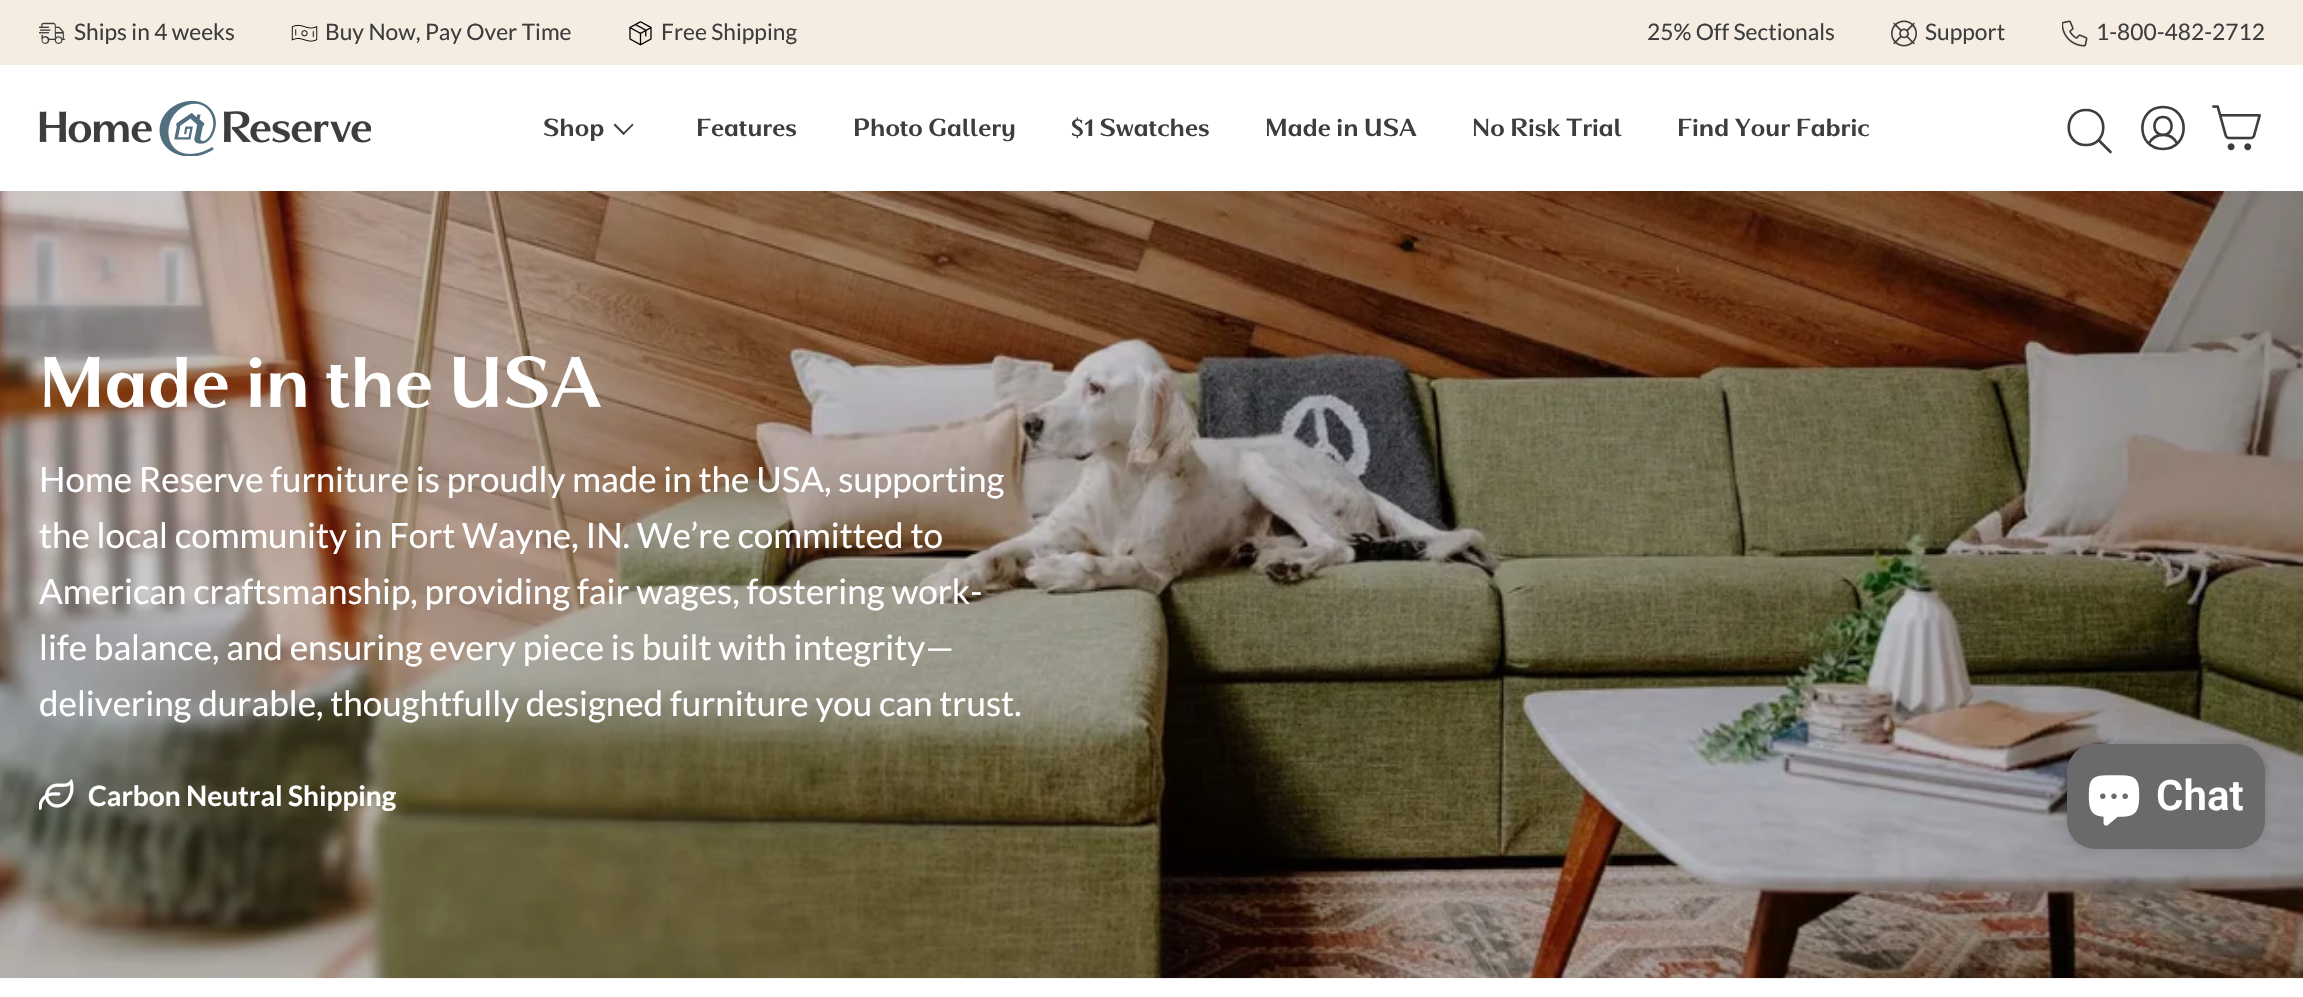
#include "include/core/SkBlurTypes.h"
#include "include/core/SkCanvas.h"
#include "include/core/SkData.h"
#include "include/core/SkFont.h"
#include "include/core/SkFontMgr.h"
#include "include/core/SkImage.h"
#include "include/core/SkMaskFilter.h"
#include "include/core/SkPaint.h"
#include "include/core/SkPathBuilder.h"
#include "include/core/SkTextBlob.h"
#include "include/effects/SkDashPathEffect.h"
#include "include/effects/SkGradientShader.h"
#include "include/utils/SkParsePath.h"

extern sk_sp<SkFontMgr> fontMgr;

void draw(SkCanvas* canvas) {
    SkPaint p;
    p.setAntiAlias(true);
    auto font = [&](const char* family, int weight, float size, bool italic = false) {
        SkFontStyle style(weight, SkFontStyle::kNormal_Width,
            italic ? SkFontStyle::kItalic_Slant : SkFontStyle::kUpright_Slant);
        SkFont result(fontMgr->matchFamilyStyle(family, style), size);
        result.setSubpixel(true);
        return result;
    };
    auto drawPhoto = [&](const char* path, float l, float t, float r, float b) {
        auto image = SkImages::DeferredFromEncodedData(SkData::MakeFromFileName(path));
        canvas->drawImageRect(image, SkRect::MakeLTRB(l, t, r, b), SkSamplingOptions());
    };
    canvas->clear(0xFFFFFFFF);
    p.setColor(0xFFF5EDE2);
    canvas->drawRect(SkRect::MakeLTRB(0, 0, 2303, 65), p);
    drawPhoto("media/1.png", 39, 22, 66, 44);
    auto font1 = font("Lato", 400, 22.75f);
    p.setColor(0xFF3D3D3D);
    canvas->drawString("Ships in 4 weeks", 74, 40, font1, p);
    drawPhoto("media/2.png", 291, 24, 318, 42);
    canvas->drawString("Buy Now, Pay Over Time", 325, 40, font1, p);
    drawPhoto("media/3.png", 629, 21, 652, 46);
    canvas->drawString("Free Shipping", 661, 40, font1, p);
    canvas->drawString("25% Off Sectionals", 1647, 40, font1, p);
    drawPhoto("media/4.png", 1891, 20, 1917, 47);
    canvas->drawString("Support", 1925, 40, font1, p);
    drawPhoto("media/5.png", 2062, 20, 2088, 47);
    canvas->drawString("1-800-482-2712", 2096, 40, font1, p);
    drawPhoto("media/6.png", 39, 101, 371, 156);
    auto font2 = font("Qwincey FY", 700, 24.75f);
    canvas->drawString("Shop", 543, 136, font2, p);
    canvas->drawPath(SkPathBuilder().moveTo(632.5f, 123.5f).lineTo(633.5f, 125).lineTo(623.5f, 135).lineTo(622.5f, 133.5f).close().detach(), p);
    canvas->drawPath(SkPathBuilder().moveTo(615, 123.5f).lineTo(625, 133.5f).lineTo(623.5f, 135).lineTo(613.5f, 125).close().detach(), p);
    {
        const struct { const char* s; float x, y; } items[] = {
            {"Features", 696, 136},
            {"Photo Gallery", 853, 136},
            {"$1 Swatches", 1071, 136},
            {"Made in USA", 1265, 136},
            {"No Risk Trial", 1472, 136},
            {"Find Your Fabric", 1677, 136},
        };
        for (auto [s, x, y] : items) {
            canvas->drawString(s, x, y, font2, p);
        }
    }
    p.setStyle(SkPaint::kStroke_Style);
    p.setStrokeWidth(2.6f);
    p.setStrokeCap(SkPaint::kRound_Cap);
    p.setStrokeJoin(SkPaint::kRound_Join);
    canvas->drawPath(SkPathBuilder().moveTo(2086, 145).cubicTo(2109, 145, 2109, 110, 2086, 110).cubicTo(2063, 110, 2063, 145, 2086, 145).close().moveTo(2098.5f, 140).lineTo(2110.5f, 152).detach(), p);
    canvas->drawPath(SkPathBuilder().moveTo(2163, 149).cubicTo(2190.5f, 149, 2190.5f, 107, 2163, 107).cubicTo(2135.5f, 107, 2135.5f, 149, 2163, 149).close().moveTo(2163, 135).cubicTo(2174.5f, 135, 2174.5f, 117, 2163, 117).cubicTo(2151.5f, 117, 2151.5f, 135, 2163, 135).close().moveTo(2149, 143.5f).cubicTo(2155, 132, 2171.5f, 132, 2177, 143.5f).detach(), p);
    drawPhoto("media/7.png", 2212, 105, 2261, 151);
    drawPhoto("media/8.png", 0, 191, 2303, 979);
    auto font3 = font("Qwincey FY", 700, 71.75f);
    p.setStyle(SkPaint::kFill_Style);
    p.setColor(0xFFFFFFFF);
    canvas->drawString("Made in the USA", 39, 407, font3, p);
    auto font4 = font("Lato", 400, 35);
    {
        const struct { const char* s; float x, y; } items[] = {
            {"Home Reserve furniture is proudly made in the USA, supporting", 39, 492},
            {"the local community in Fort Wayne, IN. We’re committed to", 39, 548},
            {"American craftsmanship, providing fair wages, fostering work-", 39, 604},
            {"life balance, and ensuring every piece is built with integrity—", 39, 660},
            {"delivering durable, thoughtfully designed furniture you can trust.", 39, 716},
        };
        for (auto [s, x, y] : items) {
            canvas->drawString(s, x, y, font4, p);
        }
    }
    drawPhoto("media/9.png", 39, 779, 74, 810);
    auto font5 = font("Lato", 700, 28);
    canvas->drawString("Carbon Neutral Shipping", 88, 806, font5, p);
    p.setColor(0x26000000);
    p.setMaskFilter(SkMaskFilter::MakeBlur(kNormal_SkBlurStyle, 4.5f));
    canvas->drawRoundRect(SkRect::MakeLTRB(2067, 744, 2265, 849), 28, 28, p);
    p.setMaskFilter(nullptr);
    p.setColor(0xFF6A6A6A);
    canvas->drawRoundRect(SkRect::MakeLTRB(2067, 744, 2265, 849), 28, 28, p);
    drawPhoto("media/10.png", 2088, 775, 2140, 826);
    auto font6 = font("Roboto", 600, 42);
    p.setColor(0xFFFFFFFF);
    canvas->drawString("Chat", 2156, 810, font6, p);
}
